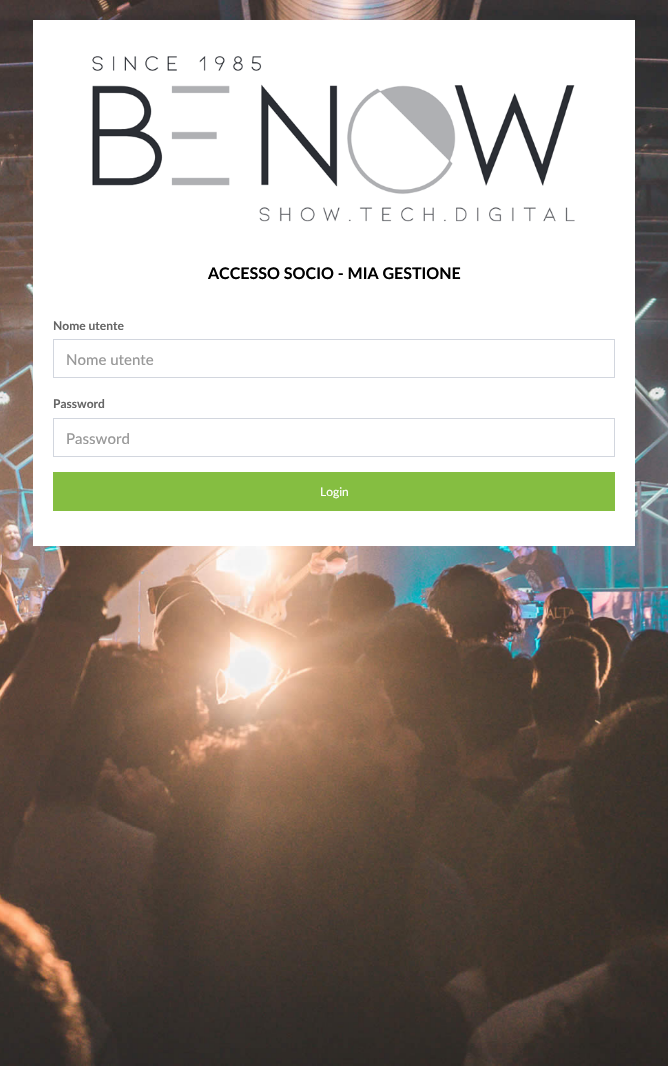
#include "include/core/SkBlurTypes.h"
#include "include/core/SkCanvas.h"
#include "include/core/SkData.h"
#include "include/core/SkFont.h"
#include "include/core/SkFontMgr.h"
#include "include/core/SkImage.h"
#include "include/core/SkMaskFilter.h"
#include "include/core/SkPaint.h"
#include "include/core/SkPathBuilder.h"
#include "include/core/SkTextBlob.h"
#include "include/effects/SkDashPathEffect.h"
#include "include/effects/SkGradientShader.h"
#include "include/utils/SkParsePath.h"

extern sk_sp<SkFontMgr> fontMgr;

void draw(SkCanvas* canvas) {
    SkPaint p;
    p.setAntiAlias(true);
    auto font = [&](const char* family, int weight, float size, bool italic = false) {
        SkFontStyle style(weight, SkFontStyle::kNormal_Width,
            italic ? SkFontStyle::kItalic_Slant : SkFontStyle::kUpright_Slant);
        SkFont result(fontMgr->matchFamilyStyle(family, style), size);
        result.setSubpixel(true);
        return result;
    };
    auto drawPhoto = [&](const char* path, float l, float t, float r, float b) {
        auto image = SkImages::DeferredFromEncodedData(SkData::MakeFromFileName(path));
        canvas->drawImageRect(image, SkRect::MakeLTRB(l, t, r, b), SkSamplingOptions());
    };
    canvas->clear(0xFFFFFFFF);
    drawPhoto("media/1.png", 0, 0, 668, 1066);
    p.setColor(0xFFFFFFFF);
    canvas->drawRect(SkRect::MakeLTRB(33, 20, 635, 546), p);
    drawPhoto("media/2.png", 92, 56, 575, 222);
    auto font1 = font("Lato", 700, 16);
    p.setColor(0xFF000000);
    canvas->drawString("ACCESSO SOCIO - MIA GESTIONE", 208, 279, font1, p);
    auto font2 = font("Lato", 700, 12);
    p.setColor(0xFF666666);
    canvas->drawString("Nome utente", 53, 330, font2, p);
    p.setStyle(SkPaint::kStroke_Style);
    p.setStrokeWidth(1);
    p.setColor(0xFFD2D6DE);
    canvas->drawRect(SkRect::MakeLTRB(53.5f, 339.5f, 614.5f, 377.5f), p);
    auto font3 = font("Lato", 500, 15);
    p.setStyle(SkPaint::kFill_Style);
    p.setColor(0xFF999999);
    canvas->drawString("Nome utente", 66, 365, font3, p);
    p.setColor(0xFF666666);
    canvas->drawString("Password", 53, 408, font2, p);
    p.setStyle(SkPaint::kStroke_Style);
    p.setColor(0xFFD2D6DE);
    canvas->drawRect(SkRect::MakeLTRB(53.5f, 418.5f, 614.5f, 456.5f), p);
    p.setStyle(SkPaint::kFill_Style);
    p.setColor(0xFF999999);
    canvas->drawString("Password", 66, 444, font3, p);
    p.setColor(0xFF85BE41);
    canvas->drawRect(SkRect::MakeLTRB(53, 472, 615, 511), p);
    auto font4 = font("Lato", 400, 12);
    p.setColor(0xFFFFFFFF);
    canvas->drawString("Login", 320, 496, font4, p);
}
